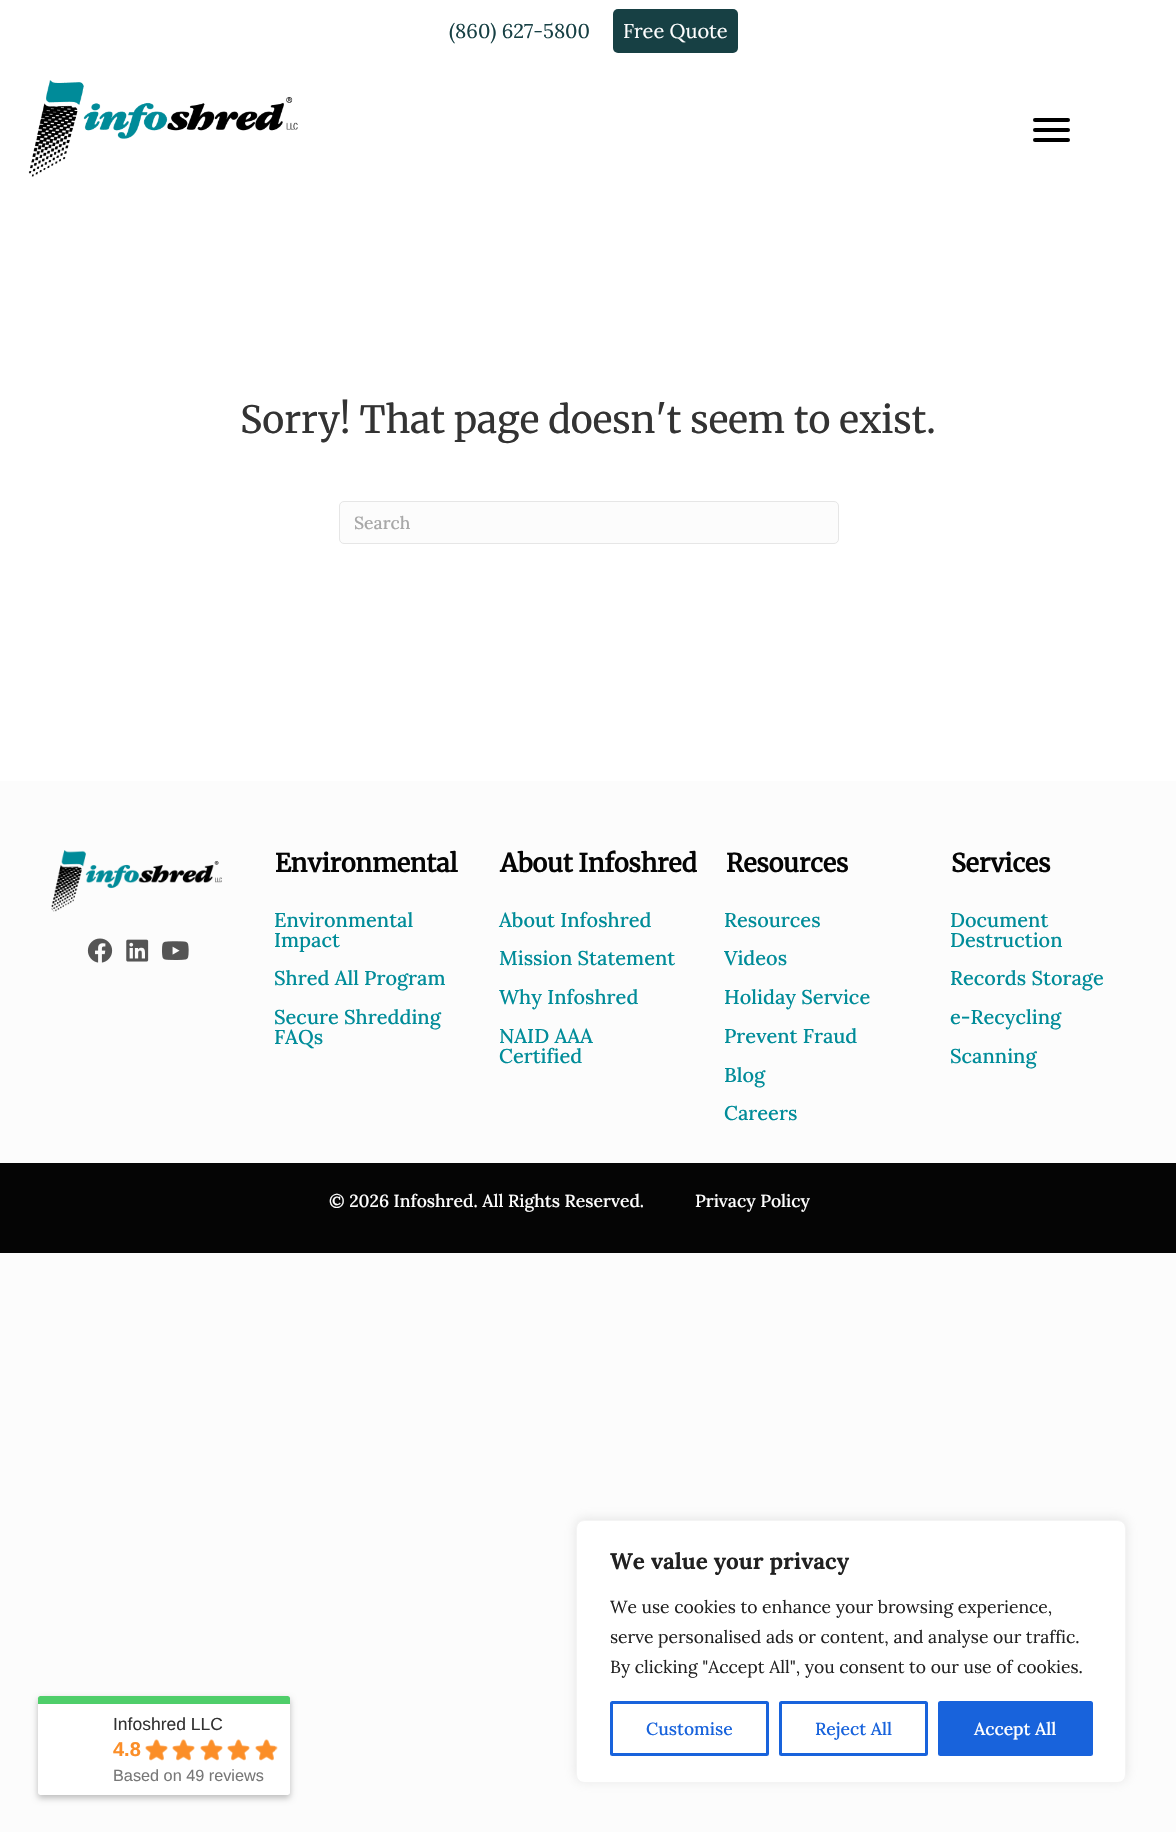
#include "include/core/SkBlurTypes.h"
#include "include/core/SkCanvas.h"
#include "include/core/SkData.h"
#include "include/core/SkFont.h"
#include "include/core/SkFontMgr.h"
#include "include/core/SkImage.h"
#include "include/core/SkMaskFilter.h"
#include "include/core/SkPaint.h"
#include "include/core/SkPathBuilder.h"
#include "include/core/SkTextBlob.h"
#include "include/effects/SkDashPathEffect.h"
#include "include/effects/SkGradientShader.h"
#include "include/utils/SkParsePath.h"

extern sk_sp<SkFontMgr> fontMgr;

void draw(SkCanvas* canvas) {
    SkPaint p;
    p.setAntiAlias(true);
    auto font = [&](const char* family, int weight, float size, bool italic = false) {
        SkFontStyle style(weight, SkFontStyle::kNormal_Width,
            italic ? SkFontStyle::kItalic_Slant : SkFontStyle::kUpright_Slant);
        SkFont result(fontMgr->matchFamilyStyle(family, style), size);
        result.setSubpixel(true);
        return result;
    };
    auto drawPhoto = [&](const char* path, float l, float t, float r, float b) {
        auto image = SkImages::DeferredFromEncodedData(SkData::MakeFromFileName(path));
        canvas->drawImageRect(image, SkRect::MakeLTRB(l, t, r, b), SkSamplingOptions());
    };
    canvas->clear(0xFFFCFCFC);
    p.setColor(0xFFFFFFFF);
    canvas->drawRect(SkRect::MakeLTRB(0, 0, 1176, 218), p);
    auto font1 = font("Lora", 400, 20);
    p.setColor(0xFF174044);
    canvas->drawString("(860) 627-5800", 449, 38, font1, p);
    canvas->drawRoundRect(SkRect::MakeLTRB(613, 9, 738, 53), 5, 5, p);
    p.setColor(0xFFFFFFFF);
    canvas->drawString("Free Quote", 623, 38, font1, p);
    drawPhoto("media/1.png", 28, 80, 298, 177);
    p.setColor(0xFF000000);
    canvas->drawRoundRect(SkRect::MakeLTRB(1033, 128, 1070, 132), 2, 2, p);
    canvas->drawRoundRect(SkRect::MakeLTRB(1033, 118, 1070, 122), 2, 2, p);
    canvas->drawRoundRect(SkRect::MakeLTRB(1033, 138, 1070, 142), 2, 2, p);
    p.setColor(0xFFFFFFFF);
    canvas->drawRect(SkRect::MakeLTRB(0, 218, 1176, 781), p);
    auto font2 = font("Merriweather", 300, 37.5f);
    p.setColor(0xFF333333);
    canvas->drawString("Sorry! That page doesn't seem to exist.", 240, 433, font2, p);
    p.setColor(0xFFFCFCFC);
    canvas->drawRoundRect(SkRect::MakeLTRB(339.5f, 501.5f, 838.5f, 543.5f), 4.5f, 4.5f, p);
    p.setStyle(SkPaint::kStroke_Style);
    p.setStrokeWidth(1);
    p.setColor(0xFFE6E6E6);
    canvas->drawRoundRect(SkRect::MakeLTRB(339.5f, 501.5f, 838.5f, 543.5f), 4.5f, 4.5f, p);
    auto font3 = font("Lora", 500, 17.5f);
    p.setStyle(SkPaint::kFill_Style);
    p.setColor(0xFFA8A8A8);
    canvas->drawString("Search", 354, 529, font3, p);
    drawPhoto("media/2.png", 51, 850, 222, 912);
    drawPhoto("media/3.png", 87, 938, 113, 963);
    drawPhoto("media/4.png", 126, 939, 149, 962);
    drawPhoto("media/5.png", 162, 941, 189, 960);
    auto font4 = font("Merriweather", 700, 25);
    p.setColor(0xFF050505);
    canvas->drawString("Environmental", 275, 872, font4, p);
    auto font5 = font("Lora", 500, 20);
    p.setColor(0xFF008C99);
    {
        const struct { const char* s; float x, y; } items[] = {
            {"Environmental", 274, 927},
            {"Impact", 274, 947},
            {"Shred All Program", 274, 985},
            {"Secure Shredding", 274, 1024},
            {"FAQs", 274, 1044},
        };
        for (auto [s, x, y] : items) {
            canvas->drawString(s, x, y, font5, p);
        }
    }
    p.setColor(0xFF050505);
    canvas->drawString("About Infoshred", 500, 872, font4, p);
    p.setColor(0xFF008C99);
    {
        const struct { const char* s; float x, y; } items[] = {
            {"About Infoshred", 499, 927},
            {"Mission Statement", 499, 965},
            {"Why Infoshred", 499, 1004},
            {"NAID AAA", 499, 1043},
            {"Certified", 499, 1063},
        };
        for (auto [s, x, y] : items) {
            canvas->drawString(s, x, y, font5, p);
        }
    }
    p.setColor(0xFF050505);
    canvas->drawString("Resources", 726, 872, font4, p);
    p.setColor(0xFF008C99);
    {
        const struct { const char* s; float x, y; } items[] = {
            {"Resources", 724, 927},
            {"Videos", 724, 965},
            {"Holiday Service", 724, 1004},
            {"Prevent Fraud", 724, 1043},
            {"Blog", 724, 1082},
            {"Careers", 724, 1120},
        };
        for (auto [s, x, y] : items) {
            canvas->drawString(s, x, y, font5, p);
        }
    }
    p.setColor(0xFF050505);
    canvas->drawString("Services", 951, 872, font4, p);
    p.setColor(0xFF008C99);
    {
        const struct { const char* s; float x, y; } items[] = {
            {"Document", 950, 927},
            {"Destruction", 950, 947},
            {"Records Storage", 950, 985},
            {"e-Recycling", 950, 1024},
            {"Scanning", 950, 1063},
        };
        for (auto [s, x, y] : items) {
            canvas->drawString(s, x, y, font5, p);
        }
    }
    p.setColor(0xFF050505);
    canvas->drawRect(SkRect::MakeLTRB(0, 1163, 1176, 1253), p);
    p.setColor(0xFFFFFFFF);
    canvas->drawString("© 2026 Infoshred. All Rights Reserved.", 329, 1207, font3, p);
    canvas->drawString("Privacy Policy", 695, 1207, font3, p);
    p.setColor(0x4DACABAB);
    p.setMaskFilter(SkMaskFilter::MakeBlur(kNormal_SkBlurStyle, 6));
    canvas->drawRoundRect(SkRect::MakeLTRB(576, 1519, 1126, 1781), 8, 8, p);
    p.setMaskFilter(nullptr);
    p.setColor(0xFFFFFFFF);
    canvas->drawRoundRect(SkRect::MakeLTRB(576.5f, 1520.5f, 1125.5f, 1782.5f), 7.5f, 7.5f, p);
    p.setStyle(SkPaint::kStroke_Style);
    p.setColor(0xFFF4F4F4);
    canvas->drawRoundRect(SkRect::MakeLTRB(576.5f, 1520.5f, 1125.5f, 1782.5f), 7.5f, 7.5f, p);
    auto font6 = font("Lora", 700, 22.5f);
    p.setStyle(SkPaint::kFill_Style);
    p.setColor(0xFF212121);
    canvas->drawString("We value your privacy", 610, 1569, font6, p);
    auto font7 = font("Lora", 400, 17.5f);
    {
        const struct { const char* s; float x, y; } items[] = {
            {"We use cookies to enhance your browsing experience,", 610, 1613},
            {"serve personalised ads or content, and analyse our traffic.", 610, 1643},
            {"By clicking \"Accept All\", you consent to our use of cookies.", 610, 1673},
        };
        for (auto [s, x, y] : items) {
            canvas->drawString(s, x, y, font7, p);
        }
    }
    p.setStyle(SkPaint::kStroke_Style);
    p.setStrokeWidth(3);
    p.setColor(0xFF1863DC);
    canvas->drawRoundRect(SkRect::MakeLTRB(611.5f, 1702.5f, 767.5f, 1754.5f), 1, 1, p);
    p.setStyle(SkPaint::kFill_Style);
    canvas->drawString("Customise", 646, 1735, font3, p);
    p.setStyle(SkPaint::kStroke_Style);
    canvas->drawRoundRect(SkRect::MakeLTRB(780.5f, 1702.5f, 926.5f, 1754.5f), 1, 1, p);
    p.setStyle(SkPaint::kFill_Style);
    canvas->drawString("Reject All", 815, 1735, font3, p);
    canvas->drawRoundRect(SkRect::MakeLTRB(939.5f, 1702.5f, 1091.5f, 1754.5f), 1, 1, p);
    p.setStyle(SkPaint::kStroke_Style);
    canvas->drawRoundRect(SkRect::MakeLTRB(939.5f, 1702.5f, 1091.5f, 1754.5f), 1, 1, p);
    p.setStyle(SkPaint::kFill_Style);
    p.setColor(0xFFFFFFFF);
    canvas->drawString("Accept All", 974, 1735, font3, p);
    p.setColor(0x42000000);
    p.setMaskFilter(SkMaskFilter::MakeBlur(kNormal_SkBlurStyle, 3));
    canvas->drawRoundRect(SkRect::MakeLTRB(38, 1699, 290, 1798), 2.5f, 2.5f, p);
    p.setMaskFilter(nullptr);
    p.setColor(0xFF4FCE6A);
    canvas->drawPath(SkPathBuilder().moveTo(40.5f, 1696).lineTo(287.5f, 1696).cubicTo(289, 1696, 290, 1697, 290, 1698.5f).lineTo(290, 1704).lineTo(38, 1704).lineTo(38, 1698.5f).cubicTo(38, 1697, 39, 1696, 40.5f, 1696).close().detach(), p);
    p.setColor(0xFFFFFFFF);
    canvas->drawPath(SkPathBuilder().moveTo(38, 1704).lineTo(290, 1704).lineTo(290, 1792.5f).cubicTo(290, 1794, 289, 1795, 287.5f, 1795).lineTo(40.5f, 1795).cubicTo(39, 1795, 38, 1794, 38, 1792.5f).close().detach(), p);
    auto font8 = font("Liberation Sans", 400, 17.5f);
    p.setColor(0xFF333333);
    canvas->drawString("Infoshred LLC", 113, 1730, font8, p);
    drawPhoto("media/6.png", 145, 1739, 278, 1761);
    auto font9 = font("Liberation Sans", 700, 20);
    p.setColor(0xFFFB8E28);
    canvas->drawString("4.8", 113, 1756, font9, p);
    drawPhoto("media/7.png", 145, 1739, 275, 1761);
    auto font10 = font("Liberation Sans", 400, 16.25f);
    p.setColor(0xFF777777);
    canvas->drawString("Based on 49 reviews", 113, 1781, font10, p);
}
